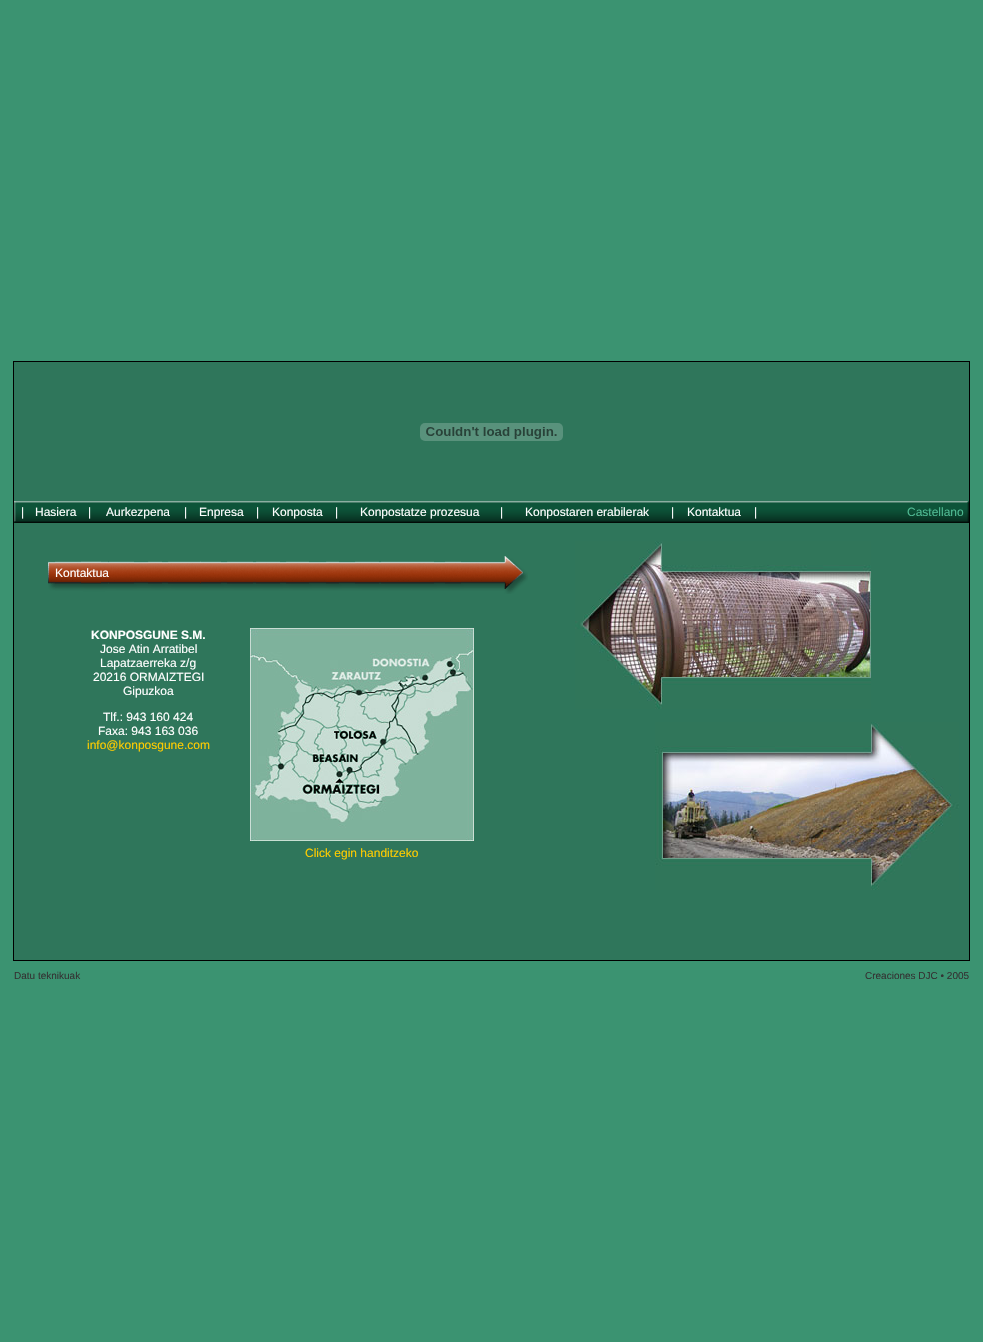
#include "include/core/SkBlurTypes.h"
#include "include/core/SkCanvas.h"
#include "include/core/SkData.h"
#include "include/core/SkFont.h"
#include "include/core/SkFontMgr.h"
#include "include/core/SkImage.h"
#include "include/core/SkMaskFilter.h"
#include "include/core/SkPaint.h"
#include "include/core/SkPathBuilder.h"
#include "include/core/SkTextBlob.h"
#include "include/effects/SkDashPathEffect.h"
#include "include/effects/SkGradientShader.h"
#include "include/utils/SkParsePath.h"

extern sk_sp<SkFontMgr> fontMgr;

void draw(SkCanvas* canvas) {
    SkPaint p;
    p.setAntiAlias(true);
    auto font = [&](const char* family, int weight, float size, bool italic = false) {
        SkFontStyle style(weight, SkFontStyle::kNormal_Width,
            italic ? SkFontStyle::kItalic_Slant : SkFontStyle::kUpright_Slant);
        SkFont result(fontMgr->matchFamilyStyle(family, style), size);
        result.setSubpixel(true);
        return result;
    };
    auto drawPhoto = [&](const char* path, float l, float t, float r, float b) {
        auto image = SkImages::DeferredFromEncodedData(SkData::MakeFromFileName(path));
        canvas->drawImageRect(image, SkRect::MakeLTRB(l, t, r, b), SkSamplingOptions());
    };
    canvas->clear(0xFF3B9371);
    p.setStyle(SkPaint::kStroke_Style);
    p.setStrokeWidth(1);
    p.setColor(0xFF000000);
    canvas->drawRect(SkRect::MakeLTRB(13.5f, 361.5f, 969.5f, 960.5f), p);
    p.setStyle(SkPaint::kFill_Style);
    p.setColor(0xFF2F765B);
    canvas->drawRect(SkRect::MakeLTRB(14, 362, 969, 501), p);
    drawPhoto("media/1.png", 420, 423, 563, 441);
    drawPhoto("media/2.png", 14, 501, 969, 523);
    auto font1 = font("Liberation Sans", 400, 12);
    p.setColor(0xFFFFFFFF);
    {
        const struct { const char* s; float x, y; } items[] = {
            {"|", 21, 516},
            {"Hasiera", 35, 516},
            {"|", 88, 516},
            {"Aurkezpena", 106, 516},
            {"|", 184, 516},
            {"Enpresa", 199, 516},
            {"|", 256, 516},
            {"Konposta", 272, 516},
            {"|", 335, 516},
            {"Konpostatze prozesua", 360, 516},
            {"|", 500, 516},
            {"Konpostaren erabilerak", 525, 516},
            {"|", 671, 516},
            {"Kontaktua", 687, 516},
            {"|", 754, 516},
        };
        for (auto [s, x, y] : items) {
            canvas->drawString(s, x, y, font1, p);
        }
    }
    p.setColor(0xFF4FB992);
    canvas->drawString("Castellano", 907, 516, font1, p);
    p.setColor(0xFF2F765B);
    canvas->drawRect(SkRect::MakeLTRB(14, 523, 969, 960), p);
    drawPhoto("media/3.png", 48, 556, 528, 594);
    p.setColor(0xFFFFFFFF);
    canvas->drawString("Kontaktua", 55, 577, font1, p);
    auto font2 = font("Liberation Sans", 700, 12);
    canvas->drawString("KONPOSGUNE S.M.", 91, 639, font2, p);
    {
        const struct { const char* s; float x, y; } items[] = {
            {"Jose Atin Arratibel", 100, 653},
            {"Lapatzaerreka z/g", 100, 667},
            {"20216 ORMAIZTEGI", 93, 681},
            {"Gipuzkoa", 123, 695},
            {"Tlf.: 943 160 424", 103, 721},
            {"Faxa: 943 163 036", 98, 735},
        };
        for (auto [s, x, y] : items) {
            canvas->drawString(s, x, y, font1, p);
        }
    }
    p.setColor(0xFFFFCC00);
    canvas->drawString("info@konposgune.com", 87, 749, font1, p);
    drawPhoto("media/4.png", 250, 628, 474, 841);
    canvas->drawString("Click egin handitzeko", 305, 857, font1, p);
    drawPhoto("media/5.png", 575, 541, 871, 709);
    drawPhoto("media/6.png", 655, 722, 959, 890);
    auto font3 = font("Liberation Sans", 400, 10);
    p.setColor(0xFF333333);
    canvas->drawString("Datu teknikuak", 14, 979, font3, p);
    canvas->drawString("Creaciones DJC • 2005", 865, 979, font3, p);
}
